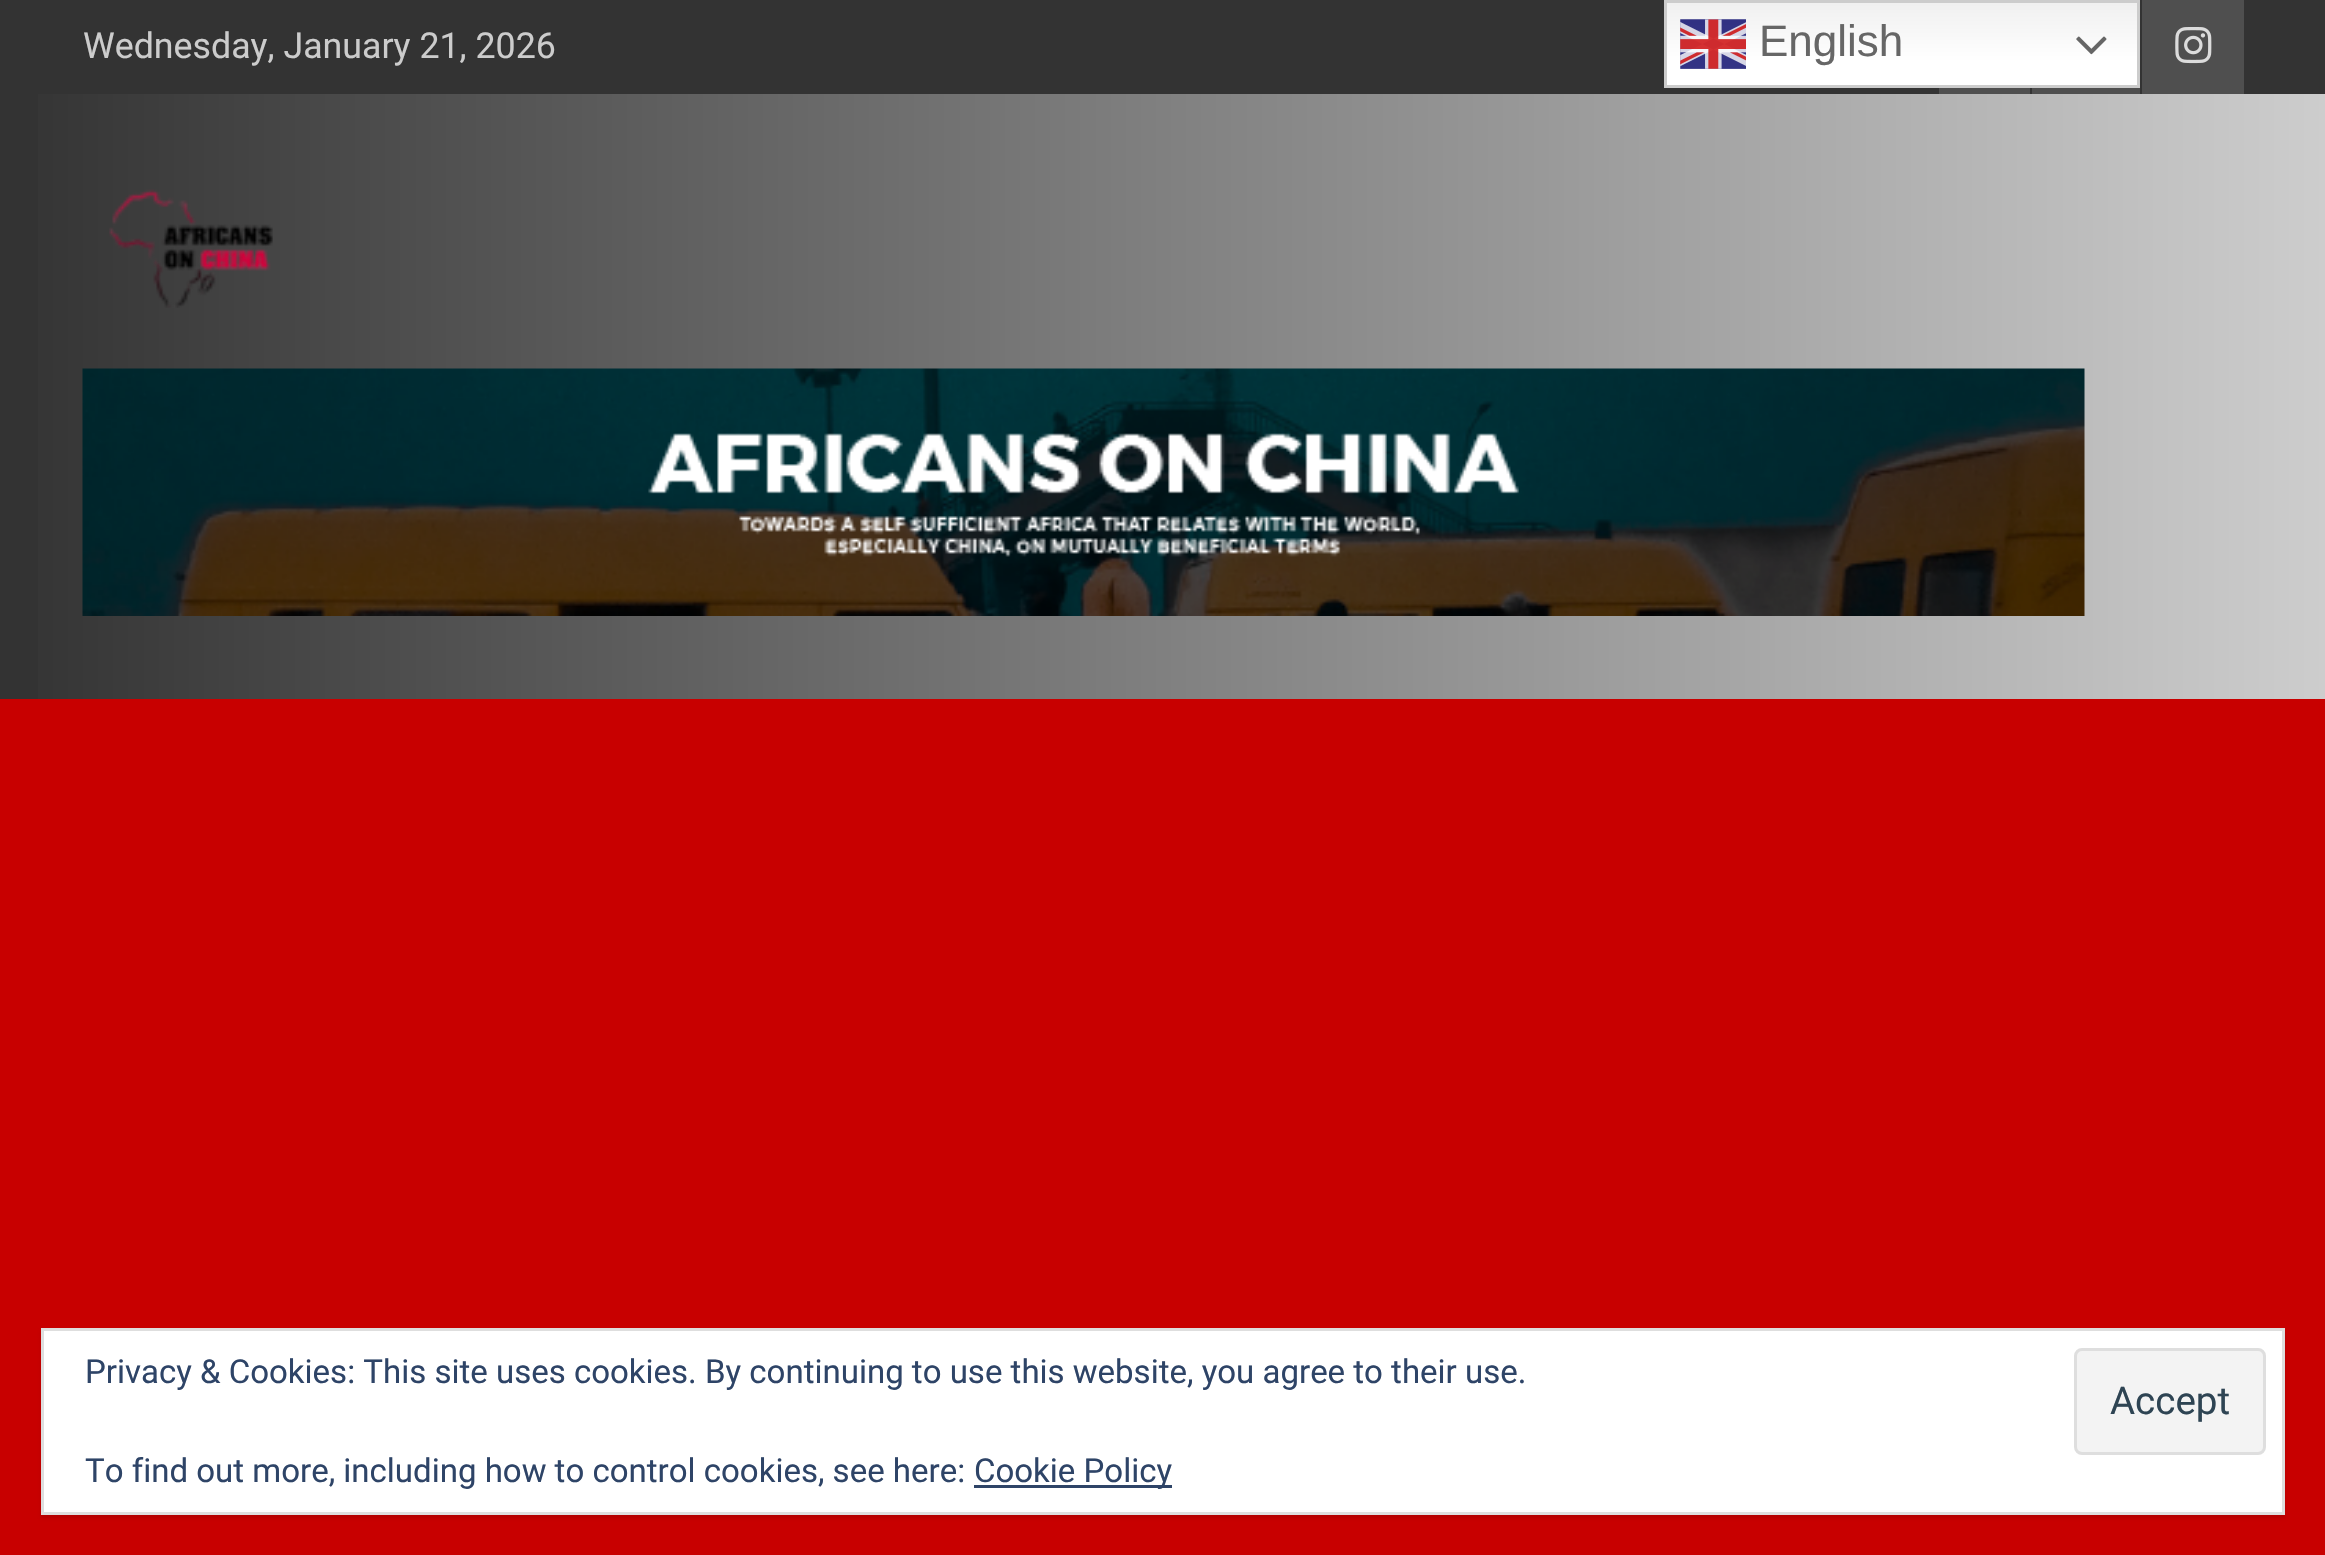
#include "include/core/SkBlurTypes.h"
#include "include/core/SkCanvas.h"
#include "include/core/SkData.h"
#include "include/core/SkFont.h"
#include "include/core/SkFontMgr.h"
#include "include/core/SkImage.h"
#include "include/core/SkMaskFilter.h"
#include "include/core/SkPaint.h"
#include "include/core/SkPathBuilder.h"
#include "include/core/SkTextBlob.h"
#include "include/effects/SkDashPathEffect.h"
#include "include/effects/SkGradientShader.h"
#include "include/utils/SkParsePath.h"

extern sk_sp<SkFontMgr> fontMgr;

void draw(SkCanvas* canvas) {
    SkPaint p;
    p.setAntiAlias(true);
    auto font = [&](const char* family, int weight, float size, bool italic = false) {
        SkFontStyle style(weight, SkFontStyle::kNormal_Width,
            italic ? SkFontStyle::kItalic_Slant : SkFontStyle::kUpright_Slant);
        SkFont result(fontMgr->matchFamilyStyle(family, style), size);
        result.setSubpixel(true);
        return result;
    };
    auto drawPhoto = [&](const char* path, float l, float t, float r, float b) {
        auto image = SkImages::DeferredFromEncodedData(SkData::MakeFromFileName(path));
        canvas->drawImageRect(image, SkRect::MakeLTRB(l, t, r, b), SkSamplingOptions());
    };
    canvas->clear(0xFF333333);
    auto font1 = font("Roboto", 400, 35.75f);
    p.setColor(0xFFCCCCCC);
    canvas->drawString("Wednesday, January 21, 2026", 83, 58, font1, p);
    {
        const struct { float l, t, r, b; SkColor color; } items[] = {
            {1939, 88, 2030, 94, 0xFF4F4F4F},
            {2032, 88, 2140, 94, 0xFF4F4F4F},
            {2142, 0, 2244, 94, 0xFF4F4F4F},
        };
        for (auto [l, t, r, b, color] : items) {
            p.setColor(color);
            canvas->drawRect(SkRect::MakeLTRB(l, t, r, b), p);
        }
    }
    drawPhoto("media/1.png", 2175, 27, 2212, 64);
    {
        const SkColor colors[] = {0xFF333333, 0xFFCDCDCD};
        const float stops[] = {0, 1};
        const SkPoint ends[] = {{0, 396}, {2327, 396}};
        p.setShader(SkGradientShader::MakeLinear(ends, colors, stops, 2, SkTileMode::kClamp));
        p.setAlpha(255);
    }
    canvas->drawRect(SkRect::MakeLTRB(38, 94, 2325, 699), p);
    drawPhoto("media/2.png", 109, 189, 273, 308);
    drawPhoto("media/3.png", 82, 368, 2085, 616);
    p.setShader(nullptr);
    p.setColor(0xFFC80000);
    canvas->drawRect(SkRect::MakeLTRB(0, 699, 2325, 1555), p);
    {
        const SkColor colors[] = {0xFFEFEFEF, 0xFFFFFFFF};
        const float stops[] = {0, 0.7f};
        const SkPoint ends[] = {{1902, 0}, {1902, 88}};
        p.setShader(SkGradientShader::MakeLinear(ends, colors, stops, 2, SkTileMode::kClamp));
        p.setAlpha(255);
    }
    canvas->drawRect(SkRect::MakeLTRB(1667, 3, 2137, 85), p);
    p.setStyle(SkPaint::kStroke_Style);
    p.setStrokeWidth(3);
    p.setShader(nullptr);
    p.setColor(0xFFCCCCCC);
    canvas->drawRect(SkRect::MakeLTRB(1665.5f, 1.5f, 2138.5f, 86.5f), p);
    drawPhoto("media/4.png", 1680, 19, 1746, 69);
    auto font2 = font("Liberation Sans", 400, 44);
    p.setStyle(SkPaint::kFill_Style);
    p.setColor(0xFF666666);
    canvas->drawString("English", 1759, 56, font2, p);
    drawPhoto("media/5.png", 2076, 36, 2107, 55);
    p.setColor(0x1A000000);
    p.setMaskFilter(SkMaskFilter::MakeBlur(kNormal_SkBlurStyle, 1.5f));
    canvas->drawRect(SkRect::MakeLTRB(41, 1331, 2285, 1518), p);
    p.setMaskFilter(nullptr);
    p.setColor(0xFFFFFFFF);
    canvas->drawRect(SkRect::MakeLTRB(42.5f, 1329.5f, 2283.5f, 1513.5f), p);
    p.setStyle(SkPaint::kStroke_Style);
    p.setColor(0xFFDEDEDE);
    canvas->drawRect(SkRect::MakeLTRB(42.5f, 1329.5f, 2283.5f, 1513.5f), p);
    auto font3 = font("Roboto", 400, 33);
    p.setStyle(SkPaint::kFill_Style);
    p.setColor(0xFF2E4467);
    canvas->drawString("Privacy & Cookies: This site uses cookies. By continuing to use this website, you agree to their use.", 85, 1383, font3, p);
    p.setColor(0xFFF3F3F3);
    canvas->drawRoundRect(SkRect::MakeLTRB(2075.5f, 1349.5f, 2264.5f, 1453.5f), 6.5f, 6.5f, p);
    p.setStyle(SkPaint::kStroke_Style);
    p.setColor(0xFFDEDEDE);
    canvas->drawRoundRect(SkRect::MakeLTRB(2075.5f, 1349.5f, 2264.5f, 1453.5f), 6.5f, 6.5f, p);
    auto font4 = font("Roboto", 400, 38.5f);
    p.setStyle(SkPaint::kFill_Style);
    p.setColor(0xFF2E4453);
    canvas->drawString("Accept", 2110, 1414, font4, p);
    p.setColor(0xFF2E4467);
    canvas->drawString("To find out more, including how to control cookies, see here:", 85, 1482, font3, p);
    canvas->drawRect(SkRect::MakeLTRB(974, 1485, 1172, 1488), p);
    canvas->drawString("Cookie Policy", 974, 1482, font3, p);
}
